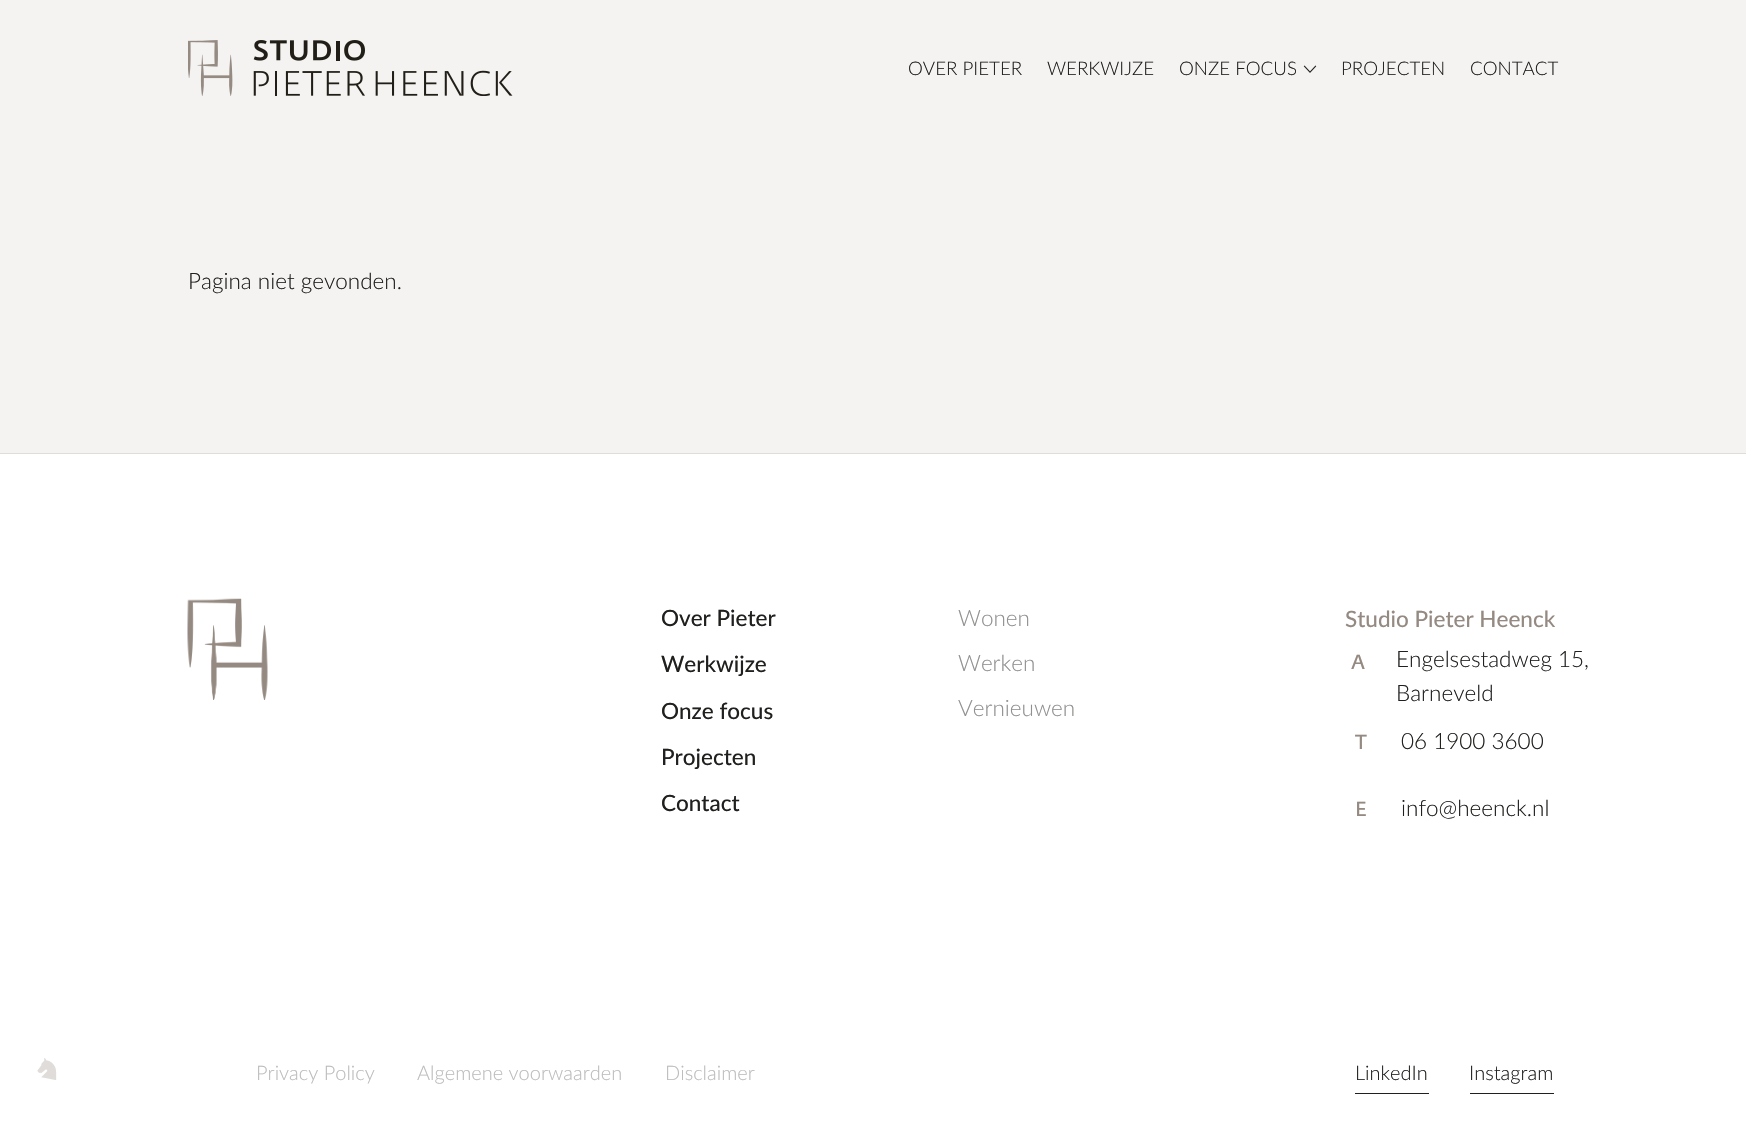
#include "include/core/SkBlurTypes.h"
#include "include/core/SkCanvas.h"
#include "include/core/SkData.h"
#include "include/core/SkFont.h"
#include "include/core/SkFontMgr.h"
#include "include/core/SkImage.h"
#include "include/core/SkMaskFilter.h"
#include "include/core/SkPaint.h"
#include "include/core/SkPathBuilder.h"
#include "include/core/SkTextBlob.h"
#include "include/effects/SkDashPathEffect.h"
#include "include/effects/SkGradientShader.h"
#include "include/utils/SkParsePath.h"

extern sk_sp<SkFontMgr> fontMgr;

void draw(SkCanvas* canvas) {
    SkPaint p;
    p.setAntiAlias(true);
    auto font = [&](const char* family, int weight, float size, bool italic = false) {
        SkFontStyle style(weight, SkFontStyle::kNormal_Width,
            italic ? SkFontStyle::kItalic_Slant : SkFontStyle::kUpright_Slant);
        SkFont result(fontMgr->matchFamilyStyle(family, style), size);
        result.setSubpixel(true);
        return result;
    };
    auto drawPhoto = [&](const char* path, float l, float t, float r, float b) {
        auto image = SkImages::DeferredFromEncodedData(SkData::MakeFromFileName(path));
        canvas->drawImageRect(image, SkRect::MakeLTRB(l, t, r, b), SkSamplingOptions());
    };
    canvas->clear(0xFFF4F3F2);
    drawPhoto("media/1.png", 188, 40, 513, 96);
    auto font1 = font("Lato", 300, 18.75f);
    p.setColor(0xFF20201E);
    {
        const struct { const char* s; float x, y; } items[] = {
            {"OVER PIETER", 908, 75},
            {"WERKWIJZE", 1047, 75},
            {"ONZE FOCUS", 1179, 75},
        };
        for (auto [s, x, y] : items) {
            canvas->drawString(s, x, y, font1, p);
        }
    }
    drawPhoto("media/2.png", 1303, 65, 1317, 73);
    canvas->drawString("PROJECTEN", 1341, 75, font1, p);
    canvas->drawString("CONTACT", 1470, 75, font1, p);
    auto font2 = font("Lato", 300, 22.5f);
    canvas->drawString("Pagina niet gevonden.", 188, 289, font2, p);
    p.setColor(0xFFFFFFFF);
    canvas->drawRect(SkRect::MakeLTRB(0, 454, 1746, 1122), p);
    p.setColor(0xFFDFDCDA);
    canvas->drawRect(SkRect::MakeLTRB(0, 453, 1746, 454), p);
    drawPhoto("media/3.png", 187, 598, 268, 700);
    auto font3 = font("Lato", 500, 22.5f);
    p.setColor(0xFF20201E);
    {
        const struct { const char* s; float x, y; } items[] = {
            {"Over Pieter", 661, 626},
            {"Werkwijze", 661, 672},
            {"Onze focus", 661, 719},
            {"Projecten", 661, 765},
            {"Contact", 661, 811},
        };
        for (auto [s, x, y] : items) {
            canvas->drawString(s, x, y, font3, p);
        }
    }
    p.setColor(0xFF90908F);
    {
        const struct { const char* s; float x, y; } items[] = {
            {"Wonen", 958, 626},
            {"Werken", 958, 671},
            {"Vernieuwen", 958, 716},
        };
        for (auto [s, x, y] : items) {
            canvas->drawString(s, x, y, font2, p);
        }
    }
    p.setColor(0xFF958A82);
    canvas->drawString("Studio Pieter Heenck", 1345, 627, font3, p);
    auto font4 = font("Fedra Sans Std", 400, 20);
    canvas->drawString("A", 1351, 669, font4, p);
    p.setColor(0xFF20201E);
    canvas->drawString("Engelsestadweg 15,", 1396, 667, font2, p);
    canvas->drawString("Barneveld", 1396, 701, font2, p);
    p.setColor(0xFF958A82);
    canvas->drawString("T", 1355, 749, font4, p);
    p.setColor(0xFF20201E);
    canvas->drawString("06 1900 3600", 1401, 749, font2, p);
    p.setColor(0xFF958A82);
    canvas->drawString("E", 1355, 816, font4, p);
    p.setColor(0xFF20201E);
    canvas->drawString("info@heenck.nl", 1401, 816, font2, p);
    drawPhoto("media/4.png", 37, 1058, 57, 1080);
    auto font5 = font("Lato", 300, 20);
    p.setColor(0xFFBCBCBC);
    {
        const struct { const char* s; float x, y; } items[] = {
            {"Privacy Policy", 256, 1080},
            {"Algemene voorwaarden", 417, 1080},
            {"Disclaimer", 665, 1080},
        };
        for (auto [s, x, y] : items) {
            canvas->drawString(s, x, y, font5, p);
        }
    }
    p.setColor(0xFF20201E);
    canvas->drawString("LinkedIn", 1355, 1080, font5, p);
    canvas->drawRect(SkRect::MakeLTRB(1355, 1093, 1429, 1094), p);
    canvas->drawString("Instagram", 1469, 1080, font5, p);
    canvas->drawRect(SkRect::MakeLTRB(1470, 1093, 1554, 1094), p);
}
